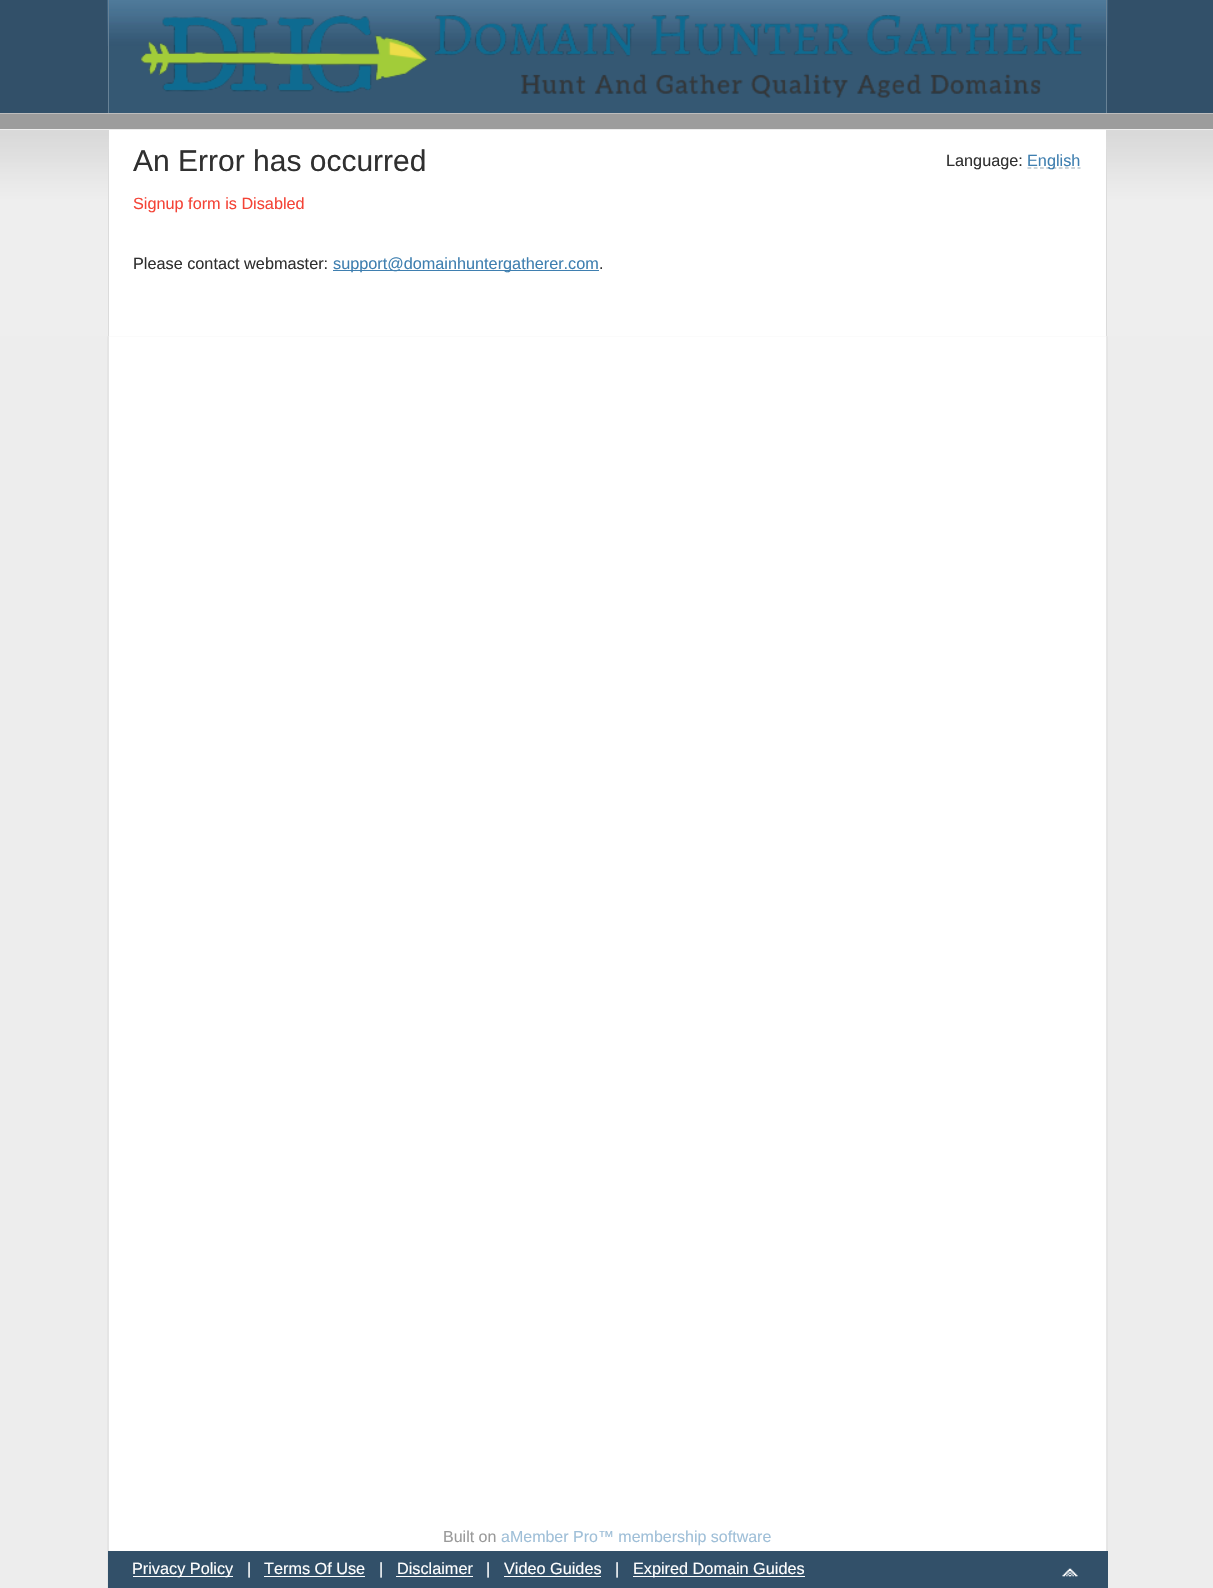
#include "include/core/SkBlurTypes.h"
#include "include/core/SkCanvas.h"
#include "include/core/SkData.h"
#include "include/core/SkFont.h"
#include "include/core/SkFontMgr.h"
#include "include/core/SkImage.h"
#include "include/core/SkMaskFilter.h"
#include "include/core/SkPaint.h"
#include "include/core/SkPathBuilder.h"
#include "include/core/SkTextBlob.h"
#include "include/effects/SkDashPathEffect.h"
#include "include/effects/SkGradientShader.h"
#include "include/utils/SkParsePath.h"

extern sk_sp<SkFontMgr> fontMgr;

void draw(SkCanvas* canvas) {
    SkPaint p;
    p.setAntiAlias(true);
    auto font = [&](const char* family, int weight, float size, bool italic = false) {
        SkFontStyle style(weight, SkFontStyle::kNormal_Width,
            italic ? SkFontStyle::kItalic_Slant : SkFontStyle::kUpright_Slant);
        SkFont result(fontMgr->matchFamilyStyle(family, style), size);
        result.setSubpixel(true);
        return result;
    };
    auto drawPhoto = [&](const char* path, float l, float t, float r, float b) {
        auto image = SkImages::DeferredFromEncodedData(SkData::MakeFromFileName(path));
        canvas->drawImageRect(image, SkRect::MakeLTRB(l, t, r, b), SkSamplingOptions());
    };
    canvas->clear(0xFFEDEDED);
    drawPhoto("media/1.png", 107, 336, 1108, 1588);
    p.setColor(0xFF325069);
    canvas->drawRect(SkRect::MakeLTRB(0, 0, 1213, 113), p);
    p.setColor(0xFF355873);
    canvas->drawRect(SkRect::MakeLTRB(109, 46, 1106, 113), p);
    drawPhoto("media/2.png", 107, 0, 1108, 46);
    p.setColor(0xFF688296);
    canvas->drawRect(SkRect::MakeLTRB(1106, 0, 1107, 113), p);
    canvas->drawRect(SkRect::MakeLTRB(108, 0, 109, 113), p);
    drawPhoto("media/3.png", 141, 15, 1082, 98);
    p.setColor(0xFF9C9C9C);
    canvas->drawRect(SkRect::MakeLTRB(0, 114, 1213, 129), p);
    p.setColor(0xFFBDBDBD);
    canvas->drawRect(SkRect::MakeLTRB(0, 113, 1213, 114), p);
    drawPhoto("media/4.png", 0, 130, 1213, 337);
    {
        const struct { float l, t, r, b; SkColor color; } items[] = {
            {109, 130, 1106, 336, 0xFFFFFFFF},
            {1106, 149, 1107, 336, 0xFFDBDBDB},
            {108, 149, 109, 336, 0xFFDBDBDB},
        };
        for (auto [l, t, r, b, color] : items) {
            p.setColor(color);
            canvas->drawRect(SkRect::MakeLTRB(l, t, r, b), p);
        }
    }
    auto font1 = font("Liberation Sans", 400, 30);
    p.setColor(0xFF303030);
    canvas->drawString("An Error has occurred", 133, 171, font1, p);
    auto font2 = font("Liberation Sans", 400, 16.25f);
    canvas->drawString("Language:", 946, 166, font2, p);
    p.setStyle(SkPaint::kStroke_Style);
    p.setStrokeWidth(1.2f);
    p.setColor(0xFF9AA9B3);
    p.setPathEffect(SkDashPathEffect::Make({{3.75f, 2.5f}}, 0));
    canvas->drawPath(SkPathBuilder().moveTo(1027.5f, 168).lineTo(1080.5f, 168).detach(), p);
    p.setPathEffect(nullptr);
    p.setStyle(SkPaint::kFill_Style);
    p.setColor(0xFF3F7FB0);
    canvas->drawString("English", 1027, 166, font2, p);
    p.setColor(0xFFF44336);
    canvas->drawString("Signup form is Disabled", 133, 209, font2, p);
    p.setColor(0xFF303030);
    canvas->drawString("Please contact webmaster:", 133, 269, font2, p);
    p.setColor(0xFF3F7FB0);
    canvas->drawRect(SkRect::MakeLTRB(333, 270, 599, 271), p);
    canvas->drawString("support@domainhuntergatherer.com", 333, 269, font2, p);
    p.setColor(0xFF303030);
    canvas->drawString(".", 599, 269, font2, p);
    p.setColor(0xFF325069);
    canvas->drawRect(SkRect::MakeLTRB(108, 1551, 1108, 1588), p);
    auto font3 = font("Liberation Sans", 400, 16);
    p.setColor(0xFF999999);
    canvas->drawString("Built on", 443, 1542, font3, p);
    p.setColor(0xFF9FBFD8);
    canvas->drawString("aMember Pro™ membership software", 501, 1542, font3, p);
    p.setColor(0xFFFFFFFF);
    canvas->drawRect(SkRect::MakeLTRB(133, 1576, 233, 1577), p);
    {
        const struct { const char* s; float x, y; } items[] = {
            {"Privacy Policy", 132, 1574},
            {"|", 247, 1574},
            {"Terms Of Use", 264, 1574},
        };
        for (auto [s, x, y] : items) {
            canvas->drawString(s, x, y, font2, p);
        }
    }
    canvas->drawRect(SkRect::MakeLTRB(264, 1576, 365, 1577), p);
    canvas->drawString("|", 379, 1574, font2, p);
    canvas->drawString("Disclaimer", 397, 1574, font2, p);
    canvas->drawRect(SkRect::MakeLTRB(396, 1576, 473, 1577), p);
    canvas->drawString("|", 486, 1574, font2, p);
    canvas->drawString("Video Guides", 504, 1574, font2, p);
    canvas->drawRect(SkRect::MakeLTRB(504, 1576, 601, 1577), p);
    canvas->drawString("|", 615, 1574, font2, p);
    canvas->drawRect(SkRect::MakeLTRB(633, 1576, 805, 1577), p);
    canvas->drawString("Expired Domain Guides", 633, 1574, font2, p);
    drawPhoto("media/5.png", 1062, 1568, 1078, 1577);
}
